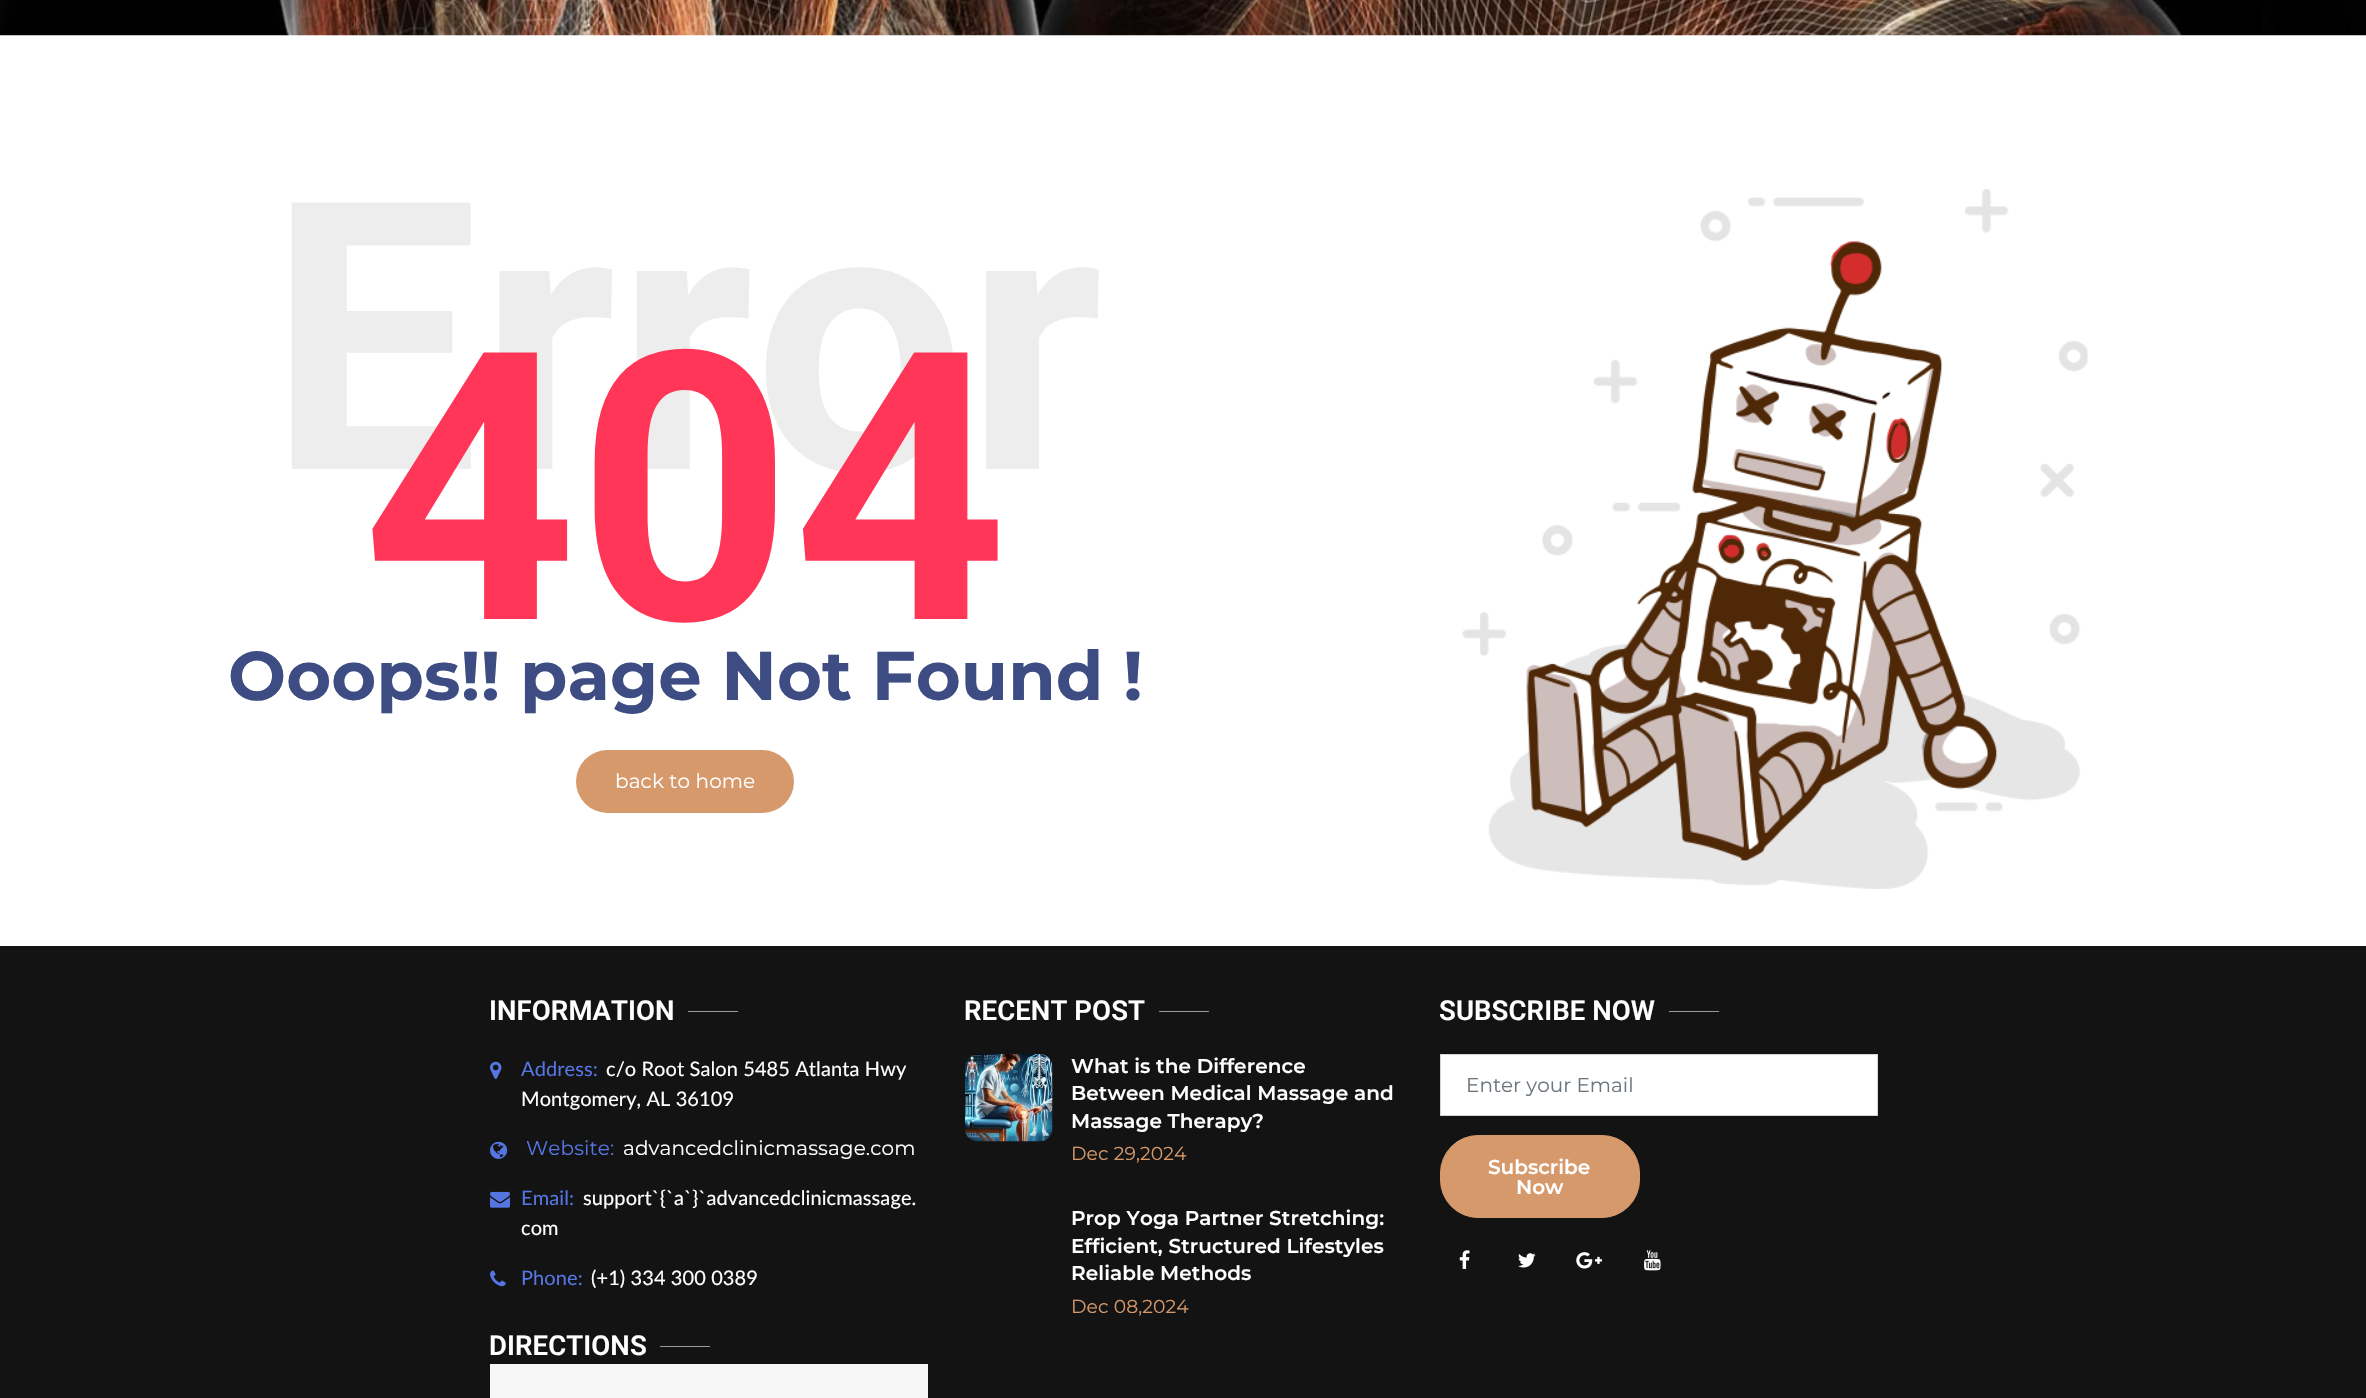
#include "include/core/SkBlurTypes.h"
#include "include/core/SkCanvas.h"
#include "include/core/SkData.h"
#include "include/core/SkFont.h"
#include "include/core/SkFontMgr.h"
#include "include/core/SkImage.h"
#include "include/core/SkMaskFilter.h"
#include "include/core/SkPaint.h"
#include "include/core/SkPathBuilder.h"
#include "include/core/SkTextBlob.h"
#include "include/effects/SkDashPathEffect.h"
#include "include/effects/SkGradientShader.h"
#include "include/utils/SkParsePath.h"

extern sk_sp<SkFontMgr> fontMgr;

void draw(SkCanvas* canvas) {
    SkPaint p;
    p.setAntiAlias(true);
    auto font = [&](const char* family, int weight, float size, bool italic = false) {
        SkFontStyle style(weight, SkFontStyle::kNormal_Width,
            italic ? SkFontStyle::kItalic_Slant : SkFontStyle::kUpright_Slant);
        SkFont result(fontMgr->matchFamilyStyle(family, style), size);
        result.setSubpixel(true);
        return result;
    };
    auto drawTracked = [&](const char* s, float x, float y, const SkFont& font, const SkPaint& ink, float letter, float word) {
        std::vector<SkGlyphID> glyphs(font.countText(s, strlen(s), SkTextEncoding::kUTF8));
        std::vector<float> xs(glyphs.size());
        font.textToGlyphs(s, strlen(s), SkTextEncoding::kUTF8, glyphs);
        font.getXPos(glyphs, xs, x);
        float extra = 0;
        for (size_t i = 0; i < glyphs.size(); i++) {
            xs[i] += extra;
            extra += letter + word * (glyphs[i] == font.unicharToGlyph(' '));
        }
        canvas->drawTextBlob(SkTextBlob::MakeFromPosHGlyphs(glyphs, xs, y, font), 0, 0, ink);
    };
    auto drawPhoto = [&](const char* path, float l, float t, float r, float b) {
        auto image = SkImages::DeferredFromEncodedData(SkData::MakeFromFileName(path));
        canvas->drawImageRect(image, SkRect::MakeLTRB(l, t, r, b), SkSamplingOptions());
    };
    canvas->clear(0xFFFFFFFF);
    drawPhoto("media/1.png", 0, 0, 2366, 36);
    auto font1 = font("Roboto", 700, 375);
    p.setColor(0xFFEDEDED);
    drawTracked("Error", 268, 469, font1, p, 0.1f, 0);
    p.setColor(0xFFFF3657);
    drawTracked("404", 362, 619, font1, p, 0.1f, 0);
    auto font2 = font("Montserrat", 700, 68.75f);
    p.setColor(0xFF3D4C83);
    drawTracked("Ooops!! page Not Found !", 228, 700, font2, p, 0.1f, 0);
    p.setColor(0xFFD6996B);
    canvas->drawRoundRect(SkRect::MakeLTRB(576, 750, 794, 813), 31.5f, 31.5f, p);
    auto font3 = font("Montserrat", 400, 20);
    p.setColor(0xFFFFFFFF);
    drawTracked("back to home", 615, 788, font3, p, 0.1f, 0);
    drawPhoto("media/2.png", 1462, 189, 2088, 889);
    p.setColor(0xFF131313);
    canvas->drawRect(SkRect::MakeLTRB(0, 946, 2366, 1398), p);
    auto font4 = font("Roboto", 600, 27.5f);
    p.setColor(0xFFFFFFFF);
    drawTracked("INFORMATION", 489, 1020, font4, p, 0.1f, 0);
    p.setColor(0xFF999999);
    canvas->drawRect(SkRect::MakeLTRB(688, 1011, 738, 1012), p);
    drawPhoto("media/3.png", 490, 1061, 502, 1079);
    auto font5 = font("Lato", 400, 20);
    p.setColor(0xFF5575E3);
    drawTracked("Address:", 521, 1076, font5, p, 0.1f, 0);
    p.setColor(0xFFFFFFFF);
    drawTracked("c/o Root Salon 5485 Atlanta Hwy", 606, 1076, font5, p, 0.1f, 0);
    drawTracked("Montgomery, AL 36109", 521, 1106, font5, p, 0.1f, 0);
    drawPhoto("media/4.png", 490, 1141, 508, 1159);
    p.setColor(0xFF5575E3);
    drawTracked("Website:", 526, 1155, font3, p, 0.1f, 0);
    p.setColor(0xFFFFFFFF);
    drawTracked("advancedclinicmassage.com", 623, 1155, font3, p, 0.1f, 0);
    drawPhoto("media/5.png", 490, 1191, 510, 1208);
    p.setColor(0xFF5575E3);
    drawTracked("Email:", 521, 1205, font5, p, 0.1f, 0);
    p.setColor(0xFFFFFFFF);
    drawTracked("support`{`a`}`advancedclinicmassage.", 583, 1205, font5, p, 0.1f, 0);
    drawTracked("com", 521, 1235, font5, p, 0.1f, 0);
    drawPhoto("media/6.png", 490, 1270, 506, 1287);
    p.setColor(0xFF5575E3);
    drawTracked("Phone:", 521, 1285, font5, p, 0.1f, 0);
    p.setColor(0xFFFFFFFF);
    drawTracked("(+1) 334 300 0389", 591, 1285, font5, p, 0.1f, 0);
    drawTracked("DIRECTIONS", 489, 1355, font4, p, 0.1f, 0);
    p.setColor(0xFF999999);
    canvas->drawRect(SkRect::MakeLTRB(660, 1346, 710, 1347), p);
    p.setColor(0xFFF7F7F7);
    canvas->drawRect(SkRect::MakeLTRB(490, 1364, 928, 1398), p);
    p.setColor(0xFFFFFFFF);
    drawTracked("RECENT POST", 964, 1020, font4, p, 0.1f, 0);
    p.setColor(0xFF999999);
    canvas->drawRect(SkRect::MakeLTRB(1159, 1011, 1209, 1012), p);
    drawPhoto("media/7.png", 965, 1054, 1053, 1142);
    auto font6 = font("Montserrat", 600, 20);
    p.setColor(0xFFFFFFFF);
    {
        const struct { const char* s; float x, y; } items[] = {
            {"What is the Difference", 1071, 1073},
            {"Between Medical Massage and", 1071, 1100},
            {"Massage Therapy?", 1071, 1128},
        };
        for (auto [s, x, y] : items) {
            drawTracked(s, x, y, font6, p, 0.1f, 0);
        }
    }
    auto font7 = font("Montserrat", 400, 18.75f);
    p.setColor(0xFFD6996B);
    drawTracked("Dec 29,2024", 1071, 1160, font7, p, 0.1f, 0);
    p.setColor(0xFFFFFFFF);
    {
        const struct { const char* s; float x, y; } items[] = {
            {"Prop Yoga Partner Stretching:", 1071, 1225},
            {"Efficient, Structured Lifestyles", 1071, 1253},
            {"Reliable Methods", 1071, 1280},
        };
        for (auto [s, x, y] : items) {
            drawTracked(s, x, y, font6, p, 0.1f, 0);
        }
    }
    p.setColor(0xFFD6996B);
    drawTracked("Dec 08,2024", 1071, 1313, font7, p, 0.1f, 0);
    p.setColor(0xFFFFFFFF);
    drawTracked("SUBSCRIBE NOW", 1439, 1020, font4, p, 0.1f, 0);
    p.setColor(0xFF999999);
    canvas->drawRect(SkRect::MakeLTRB(1669, 1011, 1719, 1012), p);
    p.setColor(0xFFFFFFFF);
    canvas->drawRect(SkRect::MakeLTRB(1440.5f, 1054.5f, 1877.5f, 1115.5f), p);
    p.setStyle(SkPaint::kStroke_Style);
    p.setStrokeWidth(1);
    p.setColor(0xFFCED4DA);
    canvas->drawRect(SkRect::MakeLTRB(1440.5f, 1054.5f, 1877.5f, 1115.5f), p);
    p.setStyle(SkPaint::kFill_Style);
    p.setColor(0xFF6C757D);
    canvas->drawString("Enter your Email", 1466, 1092, font3, p);
    p.setColor(0xFFD6996B);
    canvas->drawRoundRect(SkRect::MakeLTRB(1440.5f, 1135.5f, 1639.5f, 1217.5f), 37.5f, 37.5f, p);
    p.setStyle(SkPaint::kStroke_Style);
    canvas->drawRoundRect(SkRect::MakeLTRB(1440.5f, 1135.5f, 1639.5f, 1217.5f), 37.5f, 37.5f, p);
    p.setStyle(SkPaint::kFill_Style);
    p.setColor(0xFFFFFFFF);
    canvas->drawString("Subscribe", 1488, 1174, font6, p);
    canvas->drawString("Now", 1516, 1194, font6, p);
    drawPhoto("media/8.png", 1459, 1250, 1470, 1269);
    drawPhoto("media/9.png", 1518, 1253, 1536, 1268);
    drawPhoto("media/10.png", 1576, 1252, 1602, 1269);
    drawPhoto("media/11.png", 1644, 1250, 1661, 1271);
}
